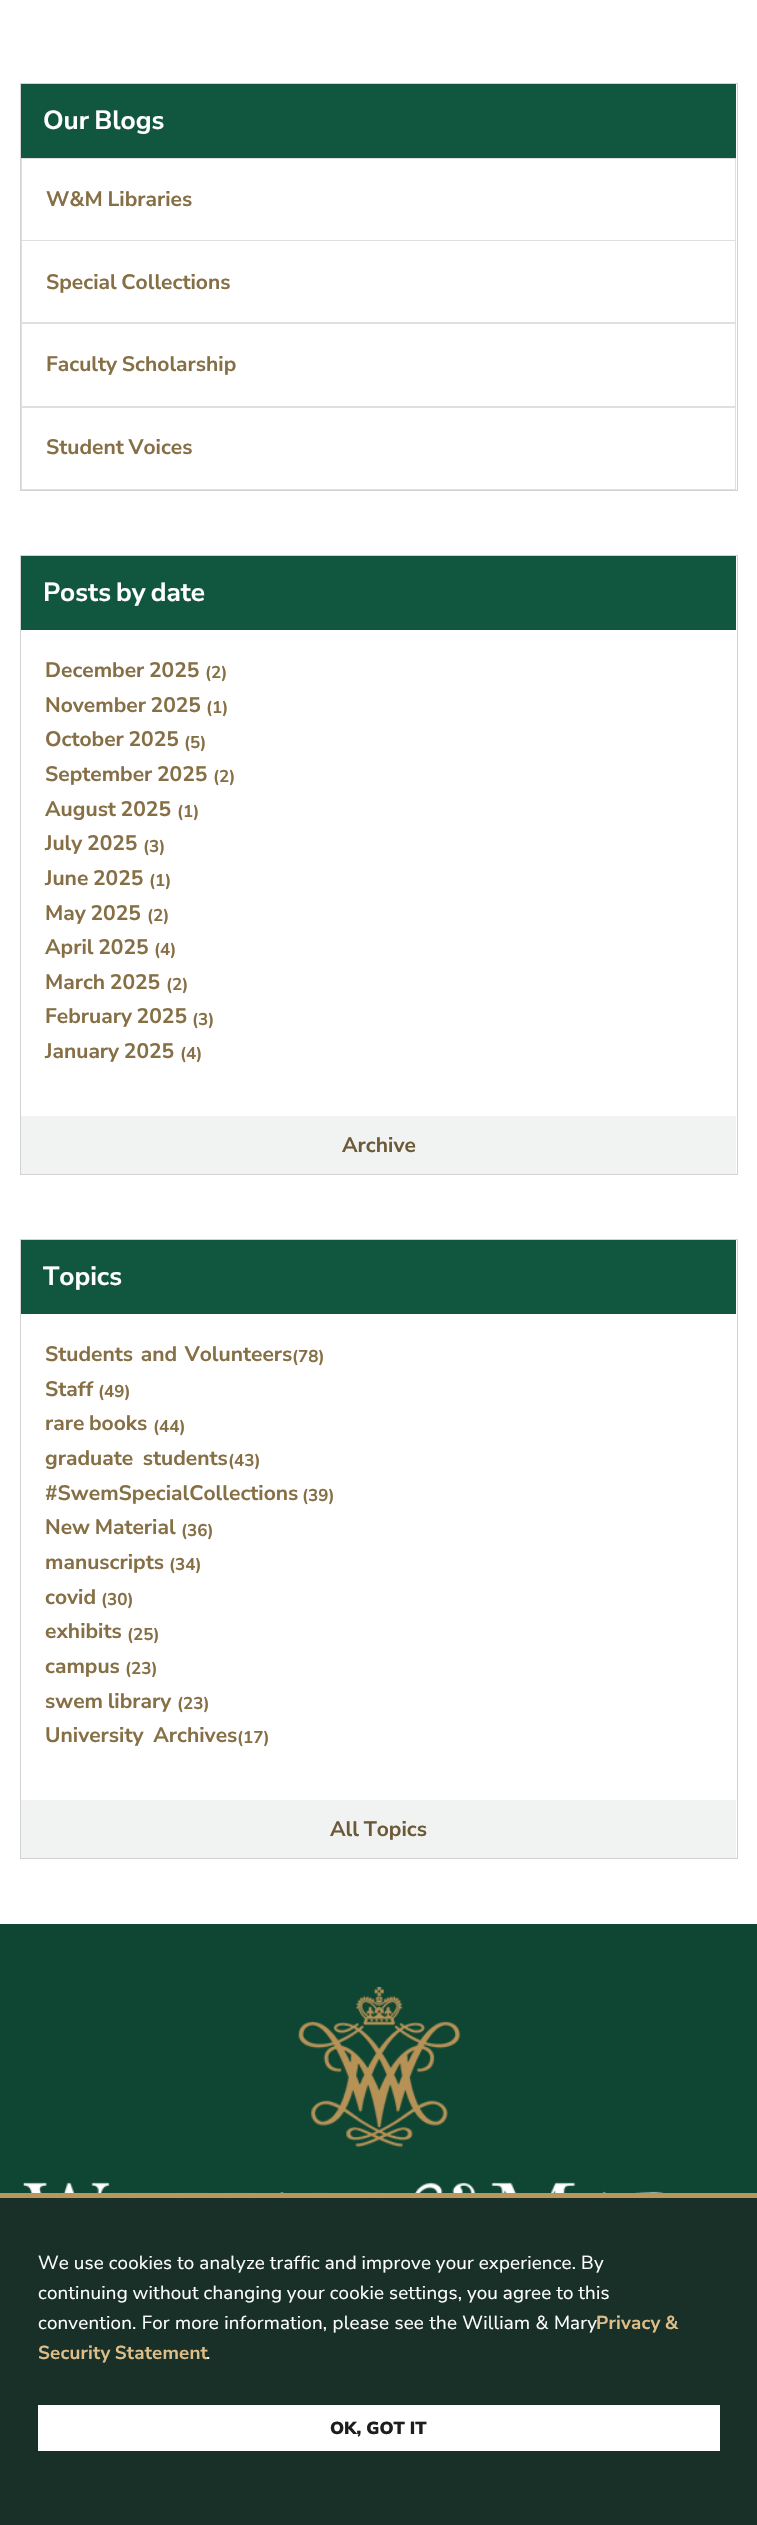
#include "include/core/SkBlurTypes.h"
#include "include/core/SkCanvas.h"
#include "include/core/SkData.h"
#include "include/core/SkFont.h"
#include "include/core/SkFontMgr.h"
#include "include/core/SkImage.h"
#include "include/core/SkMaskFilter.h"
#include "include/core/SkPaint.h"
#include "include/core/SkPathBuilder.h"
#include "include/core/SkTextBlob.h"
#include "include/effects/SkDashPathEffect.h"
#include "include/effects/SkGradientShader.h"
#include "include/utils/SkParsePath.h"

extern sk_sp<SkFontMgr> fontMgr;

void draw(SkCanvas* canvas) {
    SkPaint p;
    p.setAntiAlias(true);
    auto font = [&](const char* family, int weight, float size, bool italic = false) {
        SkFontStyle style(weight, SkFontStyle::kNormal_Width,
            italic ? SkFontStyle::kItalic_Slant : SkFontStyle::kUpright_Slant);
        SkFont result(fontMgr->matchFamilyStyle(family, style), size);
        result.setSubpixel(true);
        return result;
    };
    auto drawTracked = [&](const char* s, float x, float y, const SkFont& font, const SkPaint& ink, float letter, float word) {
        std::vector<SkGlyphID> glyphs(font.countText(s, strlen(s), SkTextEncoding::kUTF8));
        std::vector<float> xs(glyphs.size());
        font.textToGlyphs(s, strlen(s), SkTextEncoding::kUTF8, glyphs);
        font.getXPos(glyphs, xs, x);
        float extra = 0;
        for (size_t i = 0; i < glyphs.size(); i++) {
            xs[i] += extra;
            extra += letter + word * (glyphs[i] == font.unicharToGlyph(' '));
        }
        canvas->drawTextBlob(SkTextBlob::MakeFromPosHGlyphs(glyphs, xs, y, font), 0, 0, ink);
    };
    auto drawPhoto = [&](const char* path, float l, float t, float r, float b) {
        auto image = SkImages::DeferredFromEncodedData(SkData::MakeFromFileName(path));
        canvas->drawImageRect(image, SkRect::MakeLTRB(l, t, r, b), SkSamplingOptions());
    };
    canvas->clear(0xFFFFFFFF);
    p.setStyle(SkPaint::kStroke_Style);
    p.setStrokeWidth(1);
    p.setColor(0xFFD2D2D2);
    canvas->drawRect(SkRect::MakeLTRB(20.5f, 83.5f, 737.5f, 490.5f), p);
    p.setStyle(SkPaint::kFill_Style);
    p.setColor(0xFF115740);
    canvas->drawRect(SkRect::MakeLTRB(21, 84, 736, 158), p);
    auto font1 = font("Nunito Sans", 700, 26.25f);
    p.setColor(0xFFFFFFFF);
    drawTracked("Our Blogs", 43, 129, font1, p, 0, -2);
    p.setStyle(SkPaint::kStroke_Style);
    p.setColor(0xFFDFDFDF);
    canvas->drawRect(SkRect::MakeLTRB(21.5f, 158.5f, 735.5f, 240.5f), p);
    auto font2 = font("Nunito Sans", 700, 21);
    p.setStyle(SkPaint::kFill_Style);
    p.setColor(0xFF866F45);
    drawTracked("W&M Libraries", 46, 206, font2, p, 0, -1);
    p.setColor(0xFFDFDFDF);
    canvas->drawPath(SkPathBuilder().moveTo(736, 241).lineTo(736, 324).lineTo(735, 322).lineTo(735, 241).close().detach(), p);
    p.setColor(0x1F000000);
    canvas->drawPath(SkPathBuilder().moveTo(736, 324).lineTo(21, 324).lineTo(22, 322).lineTo(735, 322).close().detach(), p);
    canvas->drawPath(SkPathBuilder().moveTo(21, 324).lineTo(21, 241).lineTo(22, 241).lineTo(22, 322).close().detach(), p);
    p.setColor(0xFF866F45);
    drawTracked("Special Collections", 46, 289, font2, p, 0, -1);
    p.setColor(0xFFDFDFDF);
    canvas->drawPath(SkPathBuilder().moveTo(736, 324).lineTo(736, 408).lineTo(735, 406).lineTo(735, 324).close().detach(), p);
    p.setColor(0x1F000000);
    canvas->drawPath(SkPathBuilder().moveTo(736, 408).lineTo(21, 408).lineTo(22, 406).lineTo(735, 406).close().detach(), p);
    canvas->drawPath(SkPathBuilder().moveTo(21, 408).lineTo(21, 324).lineTo(22, 324).lineTo(22, 406).close().detach(), p);
    p.setColor(0xFF866F45);
    drawTracked("Faculty Scholarship", 46, 371, font2, p, 0, -1);
    p.setColor(0xFFDFDFDF);
    canvas->drawPath(SkPathBuilder().moveTo(736, 408).lineTo(736, 490).lineTo(735, 489).lineTo(735, 408).close().detach(), p);
    p.setColor(0x1F000000);
    canvas->drawPath(SkPathBuilder().moveTo(736, 490).lineTo(21, 490).lineTo(22, 489).lineTo(735, 489).close().detach(), p);
    canvas->drawPath(SkPathBuilder().moveTo(21, 490).lineTo(21, 408).lineTo(22, 408).lineTo(22, 489).close().detach(), p);
    p.setColor(0xFF866F45);
    drawTracked("Student Voices", 46, 454, font2, p, 0, -1);
    p.setStyle(SkPaint::kStroke_Style);
    p.setColor(0xFFD2D2D2);
    canvas->drawRect(SkRect::MakeLTRB(20.5f, 555.5f, 737.5f, 1174.5f), p);
    p.setStyle(SkPaint::kFill_Style);
    p.setColor(0xFF115740);
    canvas->drawRect(SkRect::MakeLTRB(21, 556, 736, 630), p);
    p.setColor(0xFFFFFFFF);
    drawTracked("Posts by date", 43, 601, font1, p, 0, -2);
    p.setColor(0xFF866F45);
    drawTracked("December 2025", 45, 677, font2, p, 0, -1);
    auto font3 = font("Nunito Sans", 700, 17);
    canvas->drawString("(2)", 205, 678, font3, p);
    drawTracked("November 2025", 45, 712, font2, p, 0, -1);
    canvas->drawString("(1)", 206, 713, font3, p);
    drawTracked("October 2025", 45, 746, font2, p, 0, -1);
    canvas->drawString("(5)", 184, 748, font3, p);
    drawTracked("September 2025", 45, 781, font2, p, 0, -1);
    canvas->drawString("(2)", 213, 782, font3, p);
    drawTracked("August 2025", 45, 816, font2, p, 0, -1);
    canvas->drawString("(1)", 177, 817, font3, p);
    drawTracked("July 2025", 45, 850, font2, p, 0, -1);
    canvas->drawString("(3)", 143, 852, font3, p);
    drawTracked("June 2025", 45, 885, font2, p, 0, -1);
    canvas->drawString("(1)", 149, 886, font3, p);
    drawTracked("May 2025", 45, 920, font2, p, 0, -1);
    canvas->drawString("(2)", 147, 921, font3, p);
    drawTracked("April 2025", 45, 954, font2, p, 0, -1);
    canvas->drawString("(4)", 154, 955, font3, p);
    drawTracked("March 2025", 45, 989, font2, p, 0, -1);
    canvas->drawString("(2)", 166, 990, font3, p);
    drawTracked("February 2025", 45, 1023, font2, p, 0, -1);
    canvas->drawString("(3)", 192, 1025, font3, p);
    drawTracked("January 2025", 45, 1058, font2, p, 0, -1);
    canvas->drawString("(4)", 180, 1059, font3, p);
    p.setColor(0xFFF1F2F2);
    canvas->drawRect(SkRect::MakeLTRB(21, 1116, 736, 1174), p);
    p.setColor(0xFF6B5937);
    canvas->drawString("Archive", 342, 1152, font2, p);
    p.setStyle(SkPaint::kStroke_Style);
    p.setColor(0xFFD2D2D2);
    canvas->drawRect(SkRect::MakeLTRB(20.5f, 1239.5f, 737.5f, 1858.5f), p);
    p.setStyle(SkPaint::kFill_Style);
    p.setColor(0xFF115740);
    canvas->drawRect(SkRect::MakeLTRB(21, 1240, 736, 1314), p);
    p.setColor(0xFFFFFFFF);
    canvas->drawString("Topics", 43, 1285, font1, p);
    p.setColor(0xFF866F45);
    drawTracked("Students and Volunteers", 45, 1361, font2, p, 0, 2);
    canvas->drawString("(78)", 292, 1362, font3, p);
    canvas->drawString("Staff", 45, 1396, font2, p);
    canvas->drawString("(49)", 98, 1397, font3, p);
    drawTracked("rare books", 45, 1430, font2, p, 0, -1);
    canvas->drawString("(44)", 153, 1432, font3, p);
    drawTracked("graduate students", 45, 1465, font2, p, 0, 4);
    canvas->drawString("(43)", 228, 1466, font3, p);
    canvas->drawString("#SwemSpecialCollections", 45, 1500, font2, p);
    canvas->drawString("(39)", 302, 1501, font3, p);
    drawTracked("New Material", 45, 1534, font2, p, 0, -1);
    canvas->drawString("(36)", 181, 1536, font3, p);
    canvas->drawString("manuscripts", 45, 1569, font2, p);
    canvas->drawString("(34)", 169, 1570, font3, p);
    canvas->drawString("covid", 45, 1604, font2, p);
    canvas->drawString("(30)", 101, 1605, font3, p);
    canvas->drawString("exhibits", 45, 1638, font2, p);
    canvas->drawString("(25)", 127, 1640, font3, p);
    canvas->drawString("campus", 45, 1673, font2, p);
    canvas->drawString("(23)", 125, 1674, font3, p);
    drawTracked("swem library", 45, 1708, font2, p, 0, -1);
    canvas->drawString("(23)", 177, 1709, font3, p);
    drawTracked("University Archives", 45, 1742, font2, p, 0, 4);
    canvas->drawString("(17)", 237, 1743, font3, p);
    p.setColor(0xFFF1F2F2);
    canvas->drawRect(SkRect::MakeLTRB(21, 1800, 736, 1858), p);
    p.setColor(0xFF6B5937);
    drawTracked("All Topics", 330, 1836, font2, p, 0, -1);
    p.setColor(0xFF0E4633);
    canvas->drawRect(SkRect::MakeLTRB(0, 1924, 757, 2193), p);
    drawPhoto("media/1.png", 23, 1987, 664, 2193);
    p.setColor(0xFF183028);
    canvas->drawRect(SkRect::MakeLTRB(0, 2198, 757, 2525), p);
    p.setColor(0xFFB9975B);
    canvas->drawRect(SkRect::MakeLTRB(0, 2193, 757, 2198), p);
    auto font4 = font("Nunito Sans", 400, 18.75f);
    p.setColor(0xFFFFFFFF);
    drawTracked("We use cookies to analyze traffic and improve your experience. By", 38, 2269, font4, p, 0.2f, -0.25f);
    drawTracked("continuing without changing your cookie settings, you agree to this", 38, 2299, font4, p, 0.2f, -0.25f);
    drawTracked("convention. For more information, please see the William & Mary", 38, 2329, font4, p, 0.2f, 0.25f);
    auto font5 = font("Nunito Sans", 700, 18.75f);
    p.setColor(0xFFDDBE88);
    drawTracked("Privacy &", 596, 2329, font5, p, 0.2f, -1);
    drawTracked("Security Statement", 38, 2359, font5, p, 0.2f, -1);
    p.setColor(0xFFFFFFFF);
    drawTracked(".", 206, 2359, font4, p, 0.2f, 0);
    canvas->drawRect(SkRect::MakeLTRB(38, 2405, 720, 2451), p);
    auto font6 = font("Nunito Sans", 900, 17.5f);
    p.setColor(0xFF1D1D1D);
    canvas->drawString("OK, GOT IT", 330, 2434, font6, p);
}
